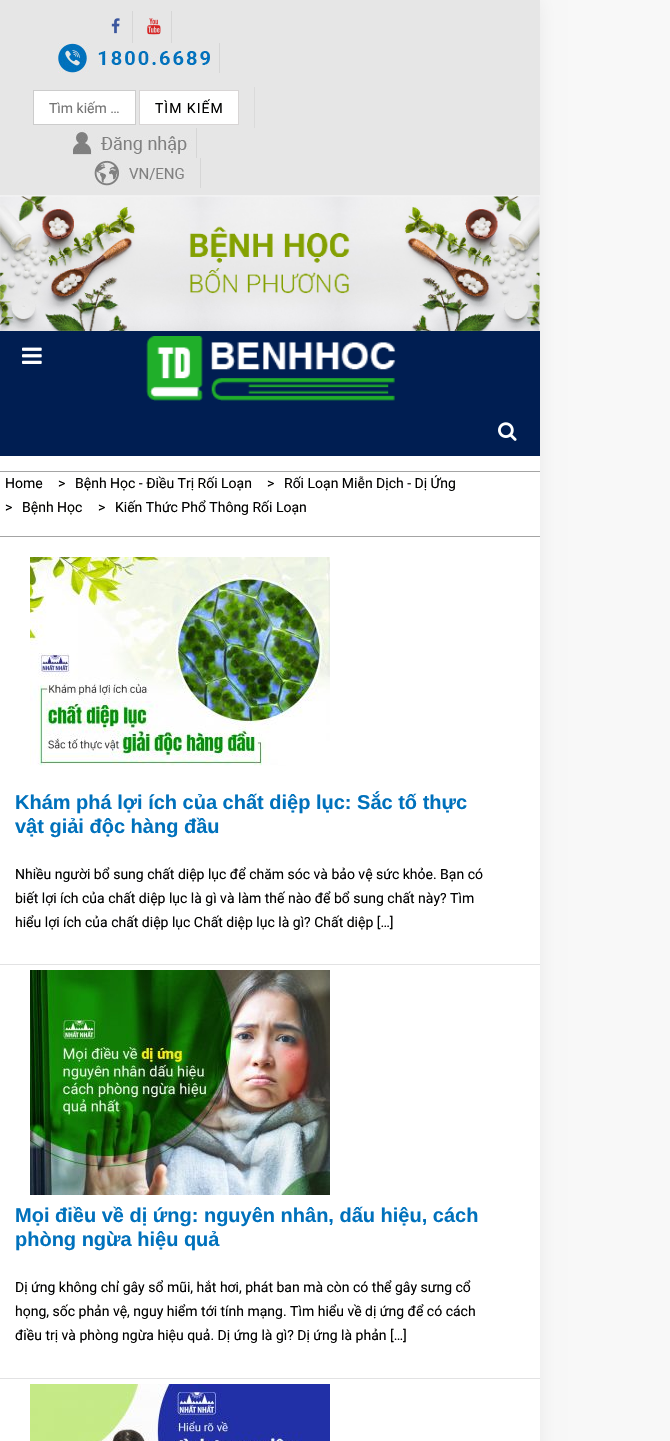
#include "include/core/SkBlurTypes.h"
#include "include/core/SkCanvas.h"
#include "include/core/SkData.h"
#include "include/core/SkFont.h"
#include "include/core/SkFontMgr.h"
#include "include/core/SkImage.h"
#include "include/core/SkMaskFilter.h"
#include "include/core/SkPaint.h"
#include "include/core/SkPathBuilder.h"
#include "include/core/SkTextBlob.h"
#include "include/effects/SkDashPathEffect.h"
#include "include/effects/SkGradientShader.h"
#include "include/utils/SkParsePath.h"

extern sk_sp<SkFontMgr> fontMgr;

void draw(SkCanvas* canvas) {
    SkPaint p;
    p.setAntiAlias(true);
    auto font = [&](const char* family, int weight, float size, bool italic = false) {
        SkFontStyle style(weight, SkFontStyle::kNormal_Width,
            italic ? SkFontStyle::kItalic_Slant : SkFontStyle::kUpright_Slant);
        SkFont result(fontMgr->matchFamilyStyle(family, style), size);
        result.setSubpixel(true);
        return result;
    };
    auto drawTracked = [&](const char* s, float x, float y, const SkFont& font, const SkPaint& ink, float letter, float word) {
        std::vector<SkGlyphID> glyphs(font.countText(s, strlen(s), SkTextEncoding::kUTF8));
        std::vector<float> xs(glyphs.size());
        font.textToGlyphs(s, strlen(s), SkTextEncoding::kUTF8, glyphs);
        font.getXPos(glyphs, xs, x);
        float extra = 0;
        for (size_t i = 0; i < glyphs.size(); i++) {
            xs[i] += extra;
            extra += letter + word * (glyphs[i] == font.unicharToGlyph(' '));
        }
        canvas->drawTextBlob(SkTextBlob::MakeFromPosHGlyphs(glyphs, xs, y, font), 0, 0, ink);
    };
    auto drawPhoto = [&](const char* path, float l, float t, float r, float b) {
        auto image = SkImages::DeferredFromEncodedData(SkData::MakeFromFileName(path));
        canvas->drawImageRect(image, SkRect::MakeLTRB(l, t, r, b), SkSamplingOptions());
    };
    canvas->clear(0xFFF8F8F8);
    p.setColor(0x12000000);
    p.setMaskFilter(SkMaskFilter::MakeBlur(kNormal_SkBlurStyle, 10));
    canvas->drawRect(SkRect::MakeLTRB(2, 0, 538, 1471), p);
    p.setMaskFilter(nullptr);
    {
        const struct { float l, t, r, b; SkColor color; } items[] = {
            {0, 456, 540, 1441, 0xFFFFFFFF},
            {0, 0, 540, 195, 0xFFE6E6E6},
            {0, 195, 540, 196, 0xFFF1F1F1},
            {132, 11, 133, 43, 0xFFD6D6D6},
        };
        for (auto [l, t, r, b, color] : items) {
            p.setColor(color);
            canvas->drawRect(SkRect::MakeLTRB(l, t, r, b), p);
        }
    }
    drawPhoto("media/1.png", 111, 18, 120, 34);
    canvas->drawRect(SkRect::MakeLTRB(171, 11, 172, 43), p);
    drawPhoto("media/2.png", 147, 18, 161, 35);
    canvas->drawRect(SkRect::MakeLTRB(219, 43, 220, 73), p);
    drawPhoto("media/3.png", 58, 43, 210, 73);
    p.setColor(0xFFDADADA);
    canvas->drawRect(SkRect::MakeLTRB(254, 87, 255, 128), p);
    p.setColor(0xFFFFFFFF);
    canvas->drawRect(SkRect::MakeLTRB(33.5f, 90.5f, 135.5f, 124.5f), p);
    p.setStyle(SkPaint::kStroke_Style);
    p.setStrokeWidth(1);
    p.setColor(0xFFCCCCCC);
    canvas->drawRect(SkRect::MakeLTRB(33.5f, 90.5f, 135.5f, 124.5f), p);
    auto font1 = font("Roboto", 400, 14);
    p.setStyle(SkPaint::kFill_Style);
    p.setColor(0xFF757575);
    canvas->drawString("Tìm kiếm …", 49, 113, font1, p);
    p.setColor(0xFFFFFFFF);
    canvas->drawRect(SkRect::MakeLTRB(139.5f, 90.5f, 238.5f, 124.5f), p);
    p.setStyle(SkPaint::kStroke_Style);
    p.setColor(0xFFD8D5D5);
    canvas->drawRect(SkRect::MakeLTRB(139.5f, 90.5f, 238.5f, 124.5f), p);
    p.setStyle(SkPaint::kFill_Style);
    p.setColor(0xFF010100);
    drawTracked("TÌM KIẾM", 155, 113, font1, p, 1, 0);
    p.setColor(0xFFD6D6D6);
    canvas->drawRect(SkRect::MakeLTRB(196, 128, 197, 158), p);
    drawPhoto("media/4.png", 73, 129, 192, 155);
    canvas->drawRect(SkRect::MakeLTRB(200, 158, 201, 188), p);
    drawPhoto("media/5.png", 94, 159, 186, 188);
    drawPhoto("media/6.png", 0, 196, 540, 331);
    p.setColor(0xFF001E52);
    canvas->drawRect(SkRect::MakeLTRB(0, 331, 540, 456), p);
    drawPhoto("media/7.png", 22, 347, 42, 364);
    drawPhoto("media/8.png", 146, 336, 396, 401);
    drawPhoto("media/9.png", 498, 422, 517, 441);
    p.setColor(0xFFA4A4A4);
    canvas->drawRect(SkRect::MakeLTRB(0, 471, 540, 472), p);
    canvas->drawRect(SkRect::MakeLTRB(0, 536, 540, 537), p);
    p.setColor(0xFF010100);
    {
        const struct { const char* s; float x, y; } items[] = {
            {"Home", 5, 488},
            {">", 58, 488},
            {"Bệnh Học - Điều Trị Rối Loạn", 75, 488},
            {">", 267, 488},
            {"Rối Loạn Miễn Dịch - Dị Ứng", 284, 488},
            {">", 5, 512},
            {"Bệnh Học", 22, 512},
            {">", 98, 512},
            {"Kiến Thức Phổ Thông Rối Loạn", 115, 512},
        };
        for (auto [s, x, y] : items) {
            canvas->drawString(s, x, y, font1, p);
        }
    }
    p.setColor(0xFFE2E2E3);
    canvas->drawRect(SkRect::MakeLTRB(0, 964, 540, 965), p);
    drawPhoto("media/10.png", 30, 557, 330, 766);
    auto font2 = font("Liberation Sans", 700, 20);
    p.setColor(0xFF0071BC);
    canvas->drawString("Khám phá lợi ích của chất diệp lục: Sắc tố thực", 15, 809, font2, p);
    canvas->drawString("vật giải độc hàng đầu", 15, 833, font2, p);
    p.setColor(0xFF010100);
    {
        const struct { const char* s; float x, y; } items[] = {
            {"Nhiều người bổ sung chất diệp lục để chăm sóc và bảo vệ sức khỏe. Bạn có", 15, 879},
            {"biết lợi ích của chất diệp lục là gì và làm thế nào để bổ sung chất này? Tìm", 15, 903},
            {"hiểu lợi ích của chất diệp lục Chất diệp lục là gì? Chất diệp […]", 15, 927},
        };
        for (auto [s, x, y] : items) {
            canvas->drawString(s, x, y, font1, p);
        }
    }
    p.setColor(0xFFE2E2E3);
    canvas->drawRect(SkRect::MakeLTRB(0, 1378, 540, 1379), p);
    drawPhoto("media/11.png", 30, 970, 330, 1195);
    p.setColor(0xFF0071BC);
    canvas->drawString("Mọi điều về dị ứng: nguyên nhân, dấu hiệu, cách", 15, 1222, font2, p);
    canvas->drawString("phòng ngừa hiệu quả", 15, 1246, font2, p);
    p.setColor(0xFF010100);
    {
        const struct { const char* s; float x, y; } items[] = {
            {"Dị ứng không chỉ gây sổ mũi, hắt hơi, phát ban mà còn có thể gây sưng cổ", 15, 1292},
            {"họng, sốc phản vệ, nguy hiểm tới tính mạng. Tìm hiểu về dị ứng để có cách", 15, 1316},
            {"điều trị và phòng ngừa hiệu quả. Dị ứng là gì? Dị ứng là phản […]", 15, 1340},
        };
        for (auto [s, x, y] : items) {
            canvas->drawString(s, x, y, font1, p);
        }
    }
    drawPhoto("media/12.png", 30, 1384, 330, 1441);
}
